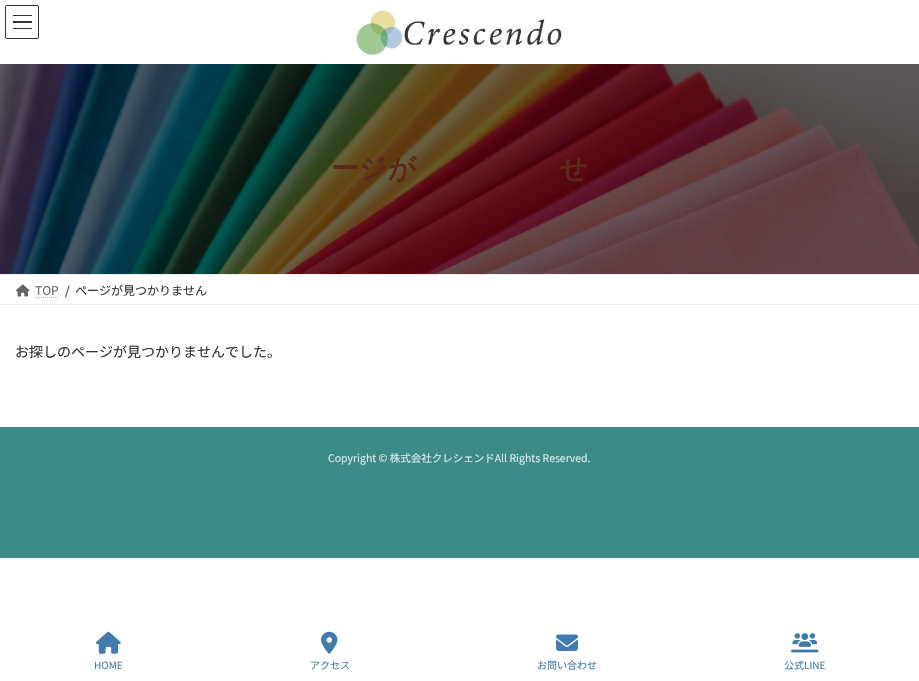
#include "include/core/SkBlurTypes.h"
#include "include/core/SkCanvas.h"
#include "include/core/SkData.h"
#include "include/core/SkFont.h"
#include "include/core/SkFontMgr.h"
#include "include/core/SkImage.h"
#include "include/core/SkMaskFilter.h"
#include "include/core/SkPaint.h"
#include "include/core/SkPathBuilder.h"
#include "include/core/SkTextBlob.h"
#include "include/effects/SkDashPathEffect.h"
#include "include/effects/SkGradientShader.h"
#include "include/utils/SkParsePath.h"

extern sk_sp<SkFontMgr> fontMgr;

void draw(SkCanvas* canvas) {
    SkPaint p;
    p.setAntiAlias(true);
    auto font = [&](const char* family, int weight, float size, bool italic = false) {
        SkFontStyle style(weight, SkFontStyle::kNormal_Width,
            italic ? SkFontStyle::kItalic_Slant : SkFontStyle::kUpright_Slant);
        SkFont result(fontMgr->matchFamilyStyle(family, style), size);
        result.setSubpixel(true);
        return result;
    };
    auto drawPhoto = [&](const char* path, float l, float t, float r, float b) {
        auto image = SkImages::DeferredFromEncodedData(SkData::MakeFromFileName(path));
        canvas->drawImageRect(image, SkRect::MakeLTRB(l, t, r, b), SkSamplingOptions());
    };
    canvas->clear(0xFFFFFFFF);
    {
        const struct { float l, t, r, b; SkColor color; } items[] = {
            {13, 15, 32, 16, 0xFF333333},
            {13, 21, 32, 23, 0xFF333333},
            {13, 28, 32, 29, 0xFF333333},
        };
        for (auto [l, t, r, b, color] : items) {
            p.setColor(color);
            canvas->drawRect(SkRect::MakeLTRB(l, t, r, b), p);
        }
    }
    p.setStyle(SkPaint::kStroke_Style);
    p.setStrokeWidth(1);
    canvas->drawRoundRect(SkRect::MakeLTRB(5.5f, 5.5f, 38.5f, 38.5f), 1.5f, 1.5f, p);
    drawPhoto("media/1.png", 354, 9, 562, 56);
    drawPhoto("media/2.png", 0, 64, 919, 274);
    auto font1 = font("WenQuanYi Zen Hei", 700, 28);
    p.setStyle(SkPaint::kFill_Style);
    p.setColor(0xFF5C281C);
    canvas->drawString("ージが", 331, 178, font1, p);
    canvas->drawString("せ", 559, 178, font1, p);
    p.setColor(0xFFF0F0F0);
    canvas->drawRect(SkRect::MakeLTRB(0, 274, 919, 275), p);
    canvas->drawRect(SkRect::MakeLTRB(0, 304, 919, 305), p);
    drawPhoto("media/3.png", 16, 284, 30, 297);
    auto font2 = font("Noto Sans JP", 400, 12);
    p.setColor(0xFF666666);
    canvas->drawString("TOP", 35, 295, font2, p);
    p.setStyle(SkPaint::kStroke_Style);
    p.setColor(0xFFB3B3B3);
    p.setPathEffect(SkDashPathEffect::Make({{1, 1}}, 0));
    canvas->drawPath(SkPathBuilder().moveTo(35, 297.5f).lineTo(58.5f, 297.5f).detach(), p);
    p.setPathEffect(nullptr);
    p.setStyle(SkPaint::kFill_Style);
    p.setColor(0xFF333333);
    canvas->drawString("/", 65, 295, font2, p);
    canvas->drawString("ページが見つかりません", 75, 295, font2, p);
    auto font3 = font("Noto Sans JP", 400, 14);
    canvas->drawString("お探しのページが見つかりませんでした。", 15, 357, font3, p);
    p.setColor(0xFF3C8B86);
    canvas->drawRect(SkRect::MakeLTRB(0, 427, 919, 558), p);
    auto font4 = font("Noto Sans JP", 400, 10.5f);
    p.setColor(0xFFD8E8E7);
    canvas->drawString("Copyright © 株式会社クレシェンドAll Rights Reserved.", 328, 462, font4, p);
    drawPhoto("media/4.png", 96, 631, 121, 654);
    auto font5 = font("Noto Sans JP", 400, 10);
    p.setColor(0xFF437CAD);
    canvas->drawString("HOME", 94, 669, font5, p);
    drawPhoto("media/5.png", 321, 631, 338, 654);
    canvas->drawString("アクセス", 310, 669, font5, p);
    drawPhoto("media/6.png", 556, 634, 578, 651);
    canvas->drawString("お問い合わせ", 537, 669, font5, p);
    drawPhoto("media/7.png", 791, 633, 819, 653);
    canvas->drawString("公式LINE", 784, 669, font5, p);
}
